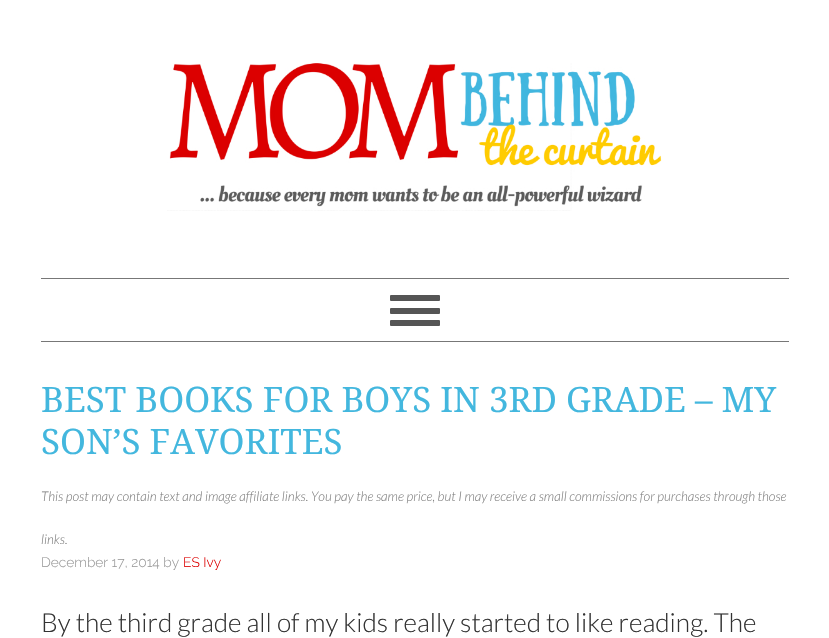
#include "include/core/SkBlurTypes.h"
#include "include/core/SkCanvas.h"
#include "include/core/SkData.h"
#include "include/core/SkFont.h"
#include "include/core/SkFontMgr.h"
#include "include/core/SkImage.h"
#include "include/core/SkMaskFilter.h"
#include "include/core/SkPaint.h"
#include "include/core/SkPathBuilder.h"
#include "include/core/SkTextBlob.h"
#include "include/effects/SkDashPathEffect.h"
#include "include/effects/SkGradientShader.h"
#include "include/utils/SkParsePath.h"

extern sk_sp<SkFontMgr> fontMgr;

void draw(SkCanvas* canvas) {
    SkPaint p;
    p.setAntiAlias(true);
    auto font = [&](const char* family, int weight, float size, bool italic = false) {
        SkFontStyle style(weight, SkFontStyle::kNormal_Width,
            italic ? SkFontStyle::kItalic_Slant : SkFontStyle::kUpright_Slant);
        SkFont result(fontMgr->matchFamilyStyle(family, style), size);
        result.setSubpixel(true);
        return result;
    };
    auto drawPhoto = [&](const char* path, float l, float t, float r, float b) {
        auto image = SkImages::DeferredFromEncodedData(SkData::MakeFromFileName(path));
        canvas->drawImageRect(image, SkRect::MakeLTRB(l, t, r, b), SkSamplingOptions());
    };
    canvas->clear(0xFFFFFFFF);
    drawPhoto("media/1.png", 167, 63, 662, 211);
    p.setColor(0xFF777777);
    canvas->drawRect(SkRect::MakeLTRB(41, 278, 789, 279), p);
    canvas->drawRect(SkRect::MakeLTRB(41, 341, 789, 342), p);
    p.setColor(0xFF555555);
    canvas->drawRoundRect(SkRect::MakeLTRB(390, 308, 440, 314), 1, 1, p);
    canvas->drawRoundRect(SkRect::MakeLTRB(390, 295, 440, 301), 1, 1, p);
    canvas->drawRoundRect(SkRect::MakeLTRB(390, 320, 440, 326), 1, 1, p);
    auto font1 = font("Droid Serif", 400, 35);
    p.setColor(0xFF43B7DE);
    canvas->drawString("BEST BOOKS FOR BOYS IN 3RD GRADE – MY", 41, 412, font1, p);
    canvas->drawString("SON’S FAVORITES", 41, 454, font1, p);
    auto font2 = font("Lato", 300, 13.33f, true);
    p.setColor(0xFF808080);
    canvas->drawString("This post may contain text and image affiliate links. You pay the same price, but I may receive a small commissions for purchases through those", 41, 501, font2, p);
    canvas->drawString("links.", 41, 544, font2, p);
    auto font3 = font("Raleway", 300, 13.75f);
    p.setColor(0xFF999999);
    canvas->drawString("December 17, 2014 by", 41, 567, font3, p);
    p.setColor(0xFFDC0000);
    canvas->drawString("ES Ivy", 183, 567, font3, p);
    auto font4 = font("Lato", 300, 26.25f);
    p.setColor(0xFF333333);
    canvas->drawString("By the third grade all of my kids really started to like reading. The", 41, 632, font4, p);
}
